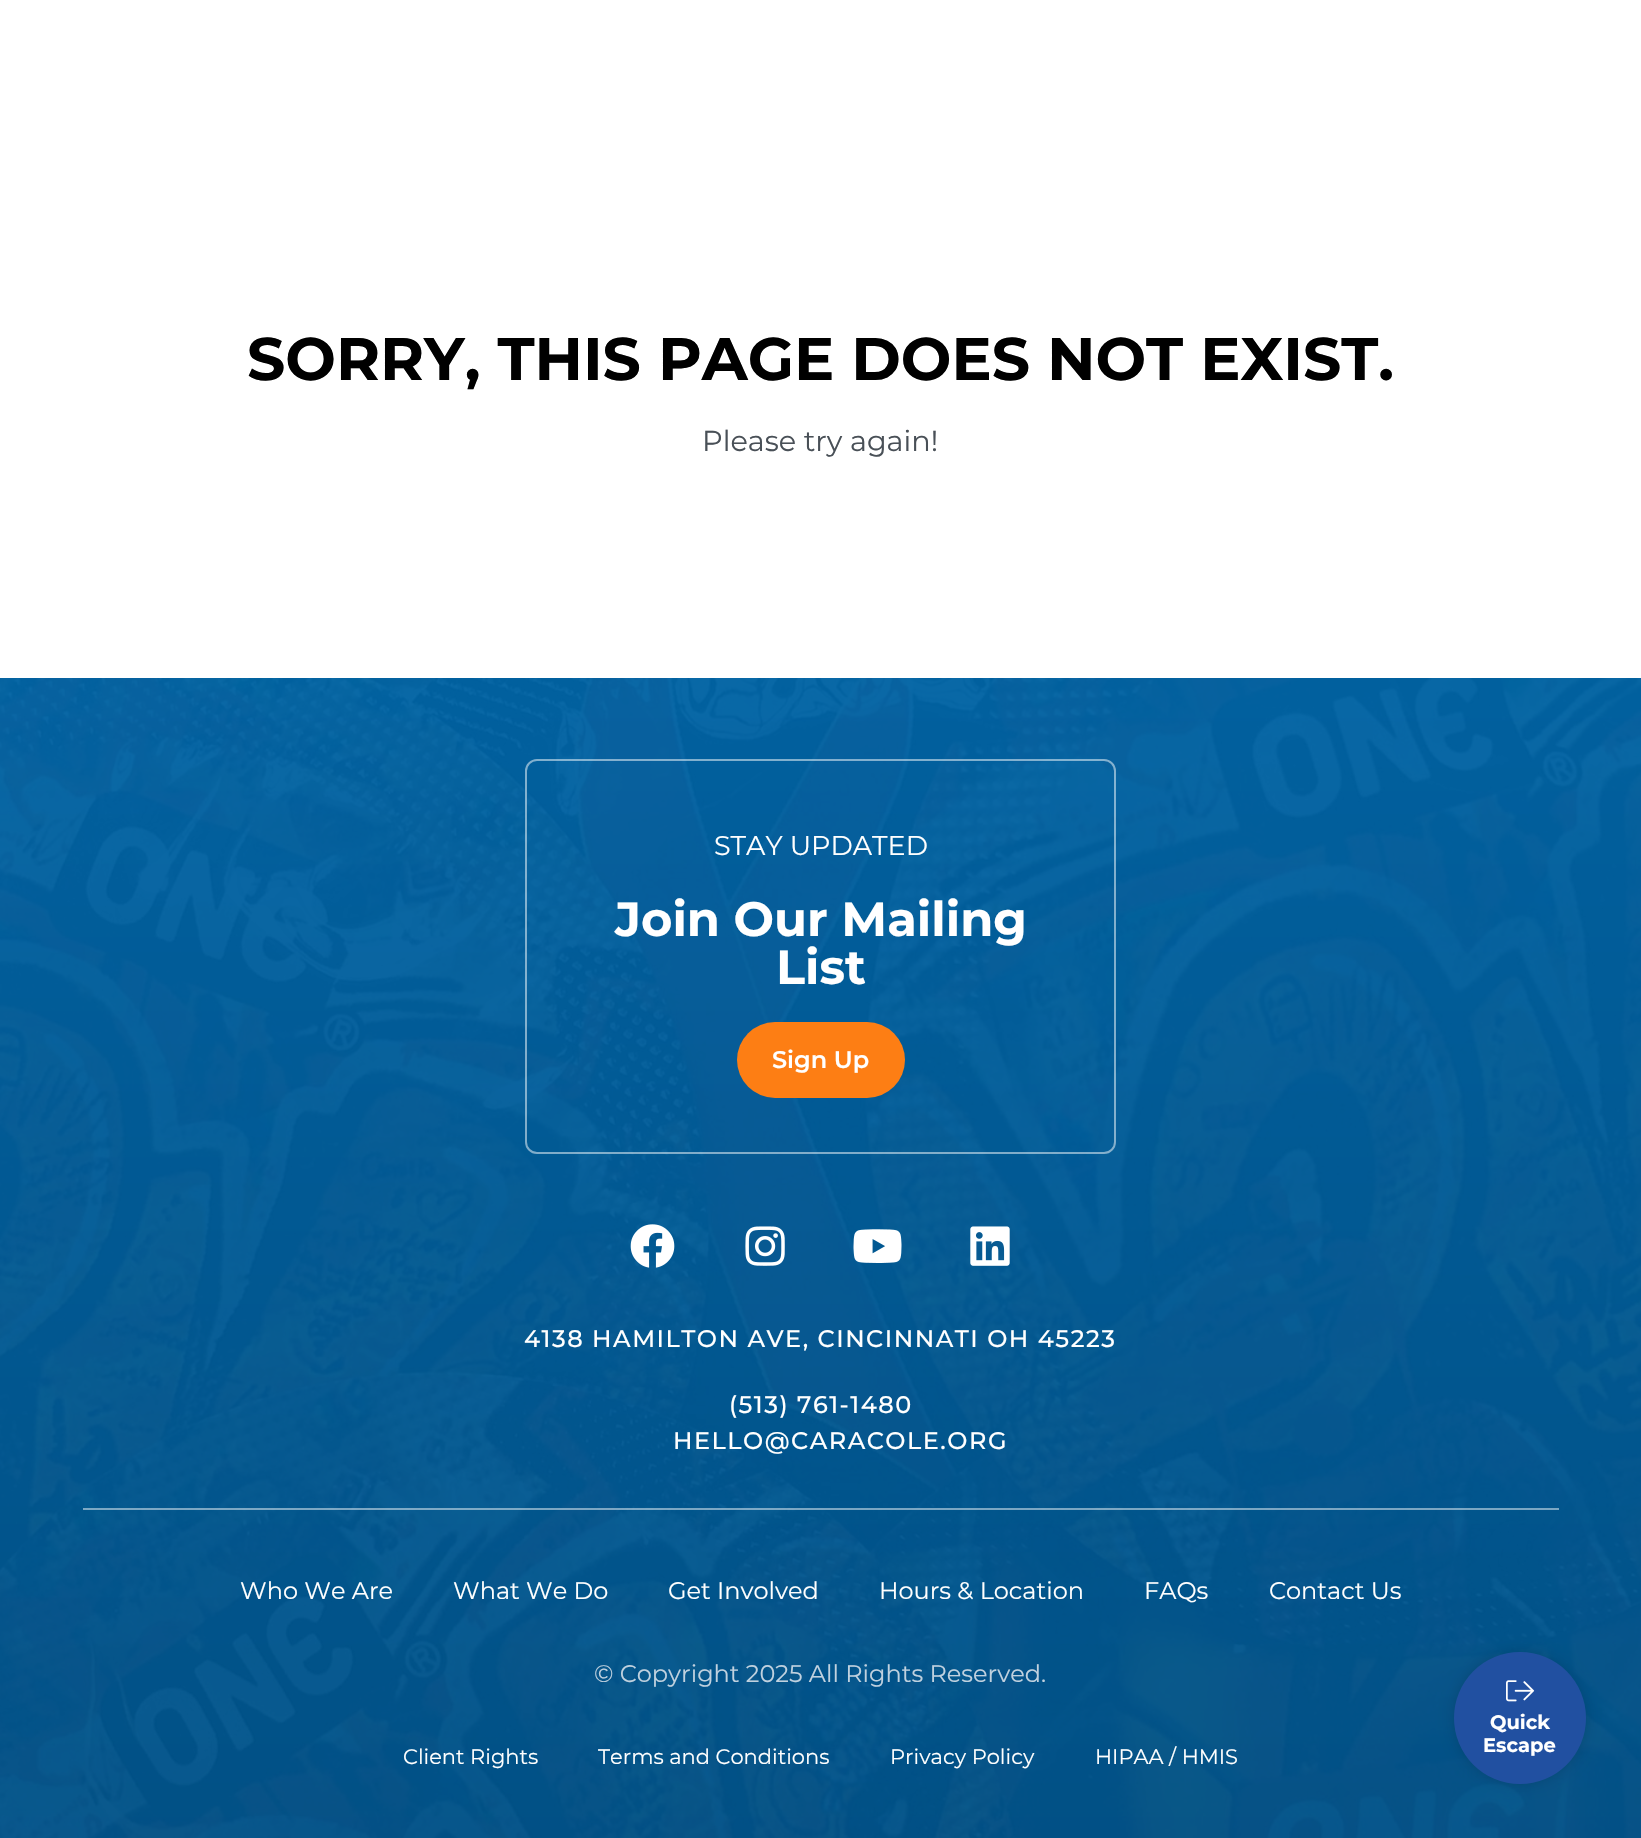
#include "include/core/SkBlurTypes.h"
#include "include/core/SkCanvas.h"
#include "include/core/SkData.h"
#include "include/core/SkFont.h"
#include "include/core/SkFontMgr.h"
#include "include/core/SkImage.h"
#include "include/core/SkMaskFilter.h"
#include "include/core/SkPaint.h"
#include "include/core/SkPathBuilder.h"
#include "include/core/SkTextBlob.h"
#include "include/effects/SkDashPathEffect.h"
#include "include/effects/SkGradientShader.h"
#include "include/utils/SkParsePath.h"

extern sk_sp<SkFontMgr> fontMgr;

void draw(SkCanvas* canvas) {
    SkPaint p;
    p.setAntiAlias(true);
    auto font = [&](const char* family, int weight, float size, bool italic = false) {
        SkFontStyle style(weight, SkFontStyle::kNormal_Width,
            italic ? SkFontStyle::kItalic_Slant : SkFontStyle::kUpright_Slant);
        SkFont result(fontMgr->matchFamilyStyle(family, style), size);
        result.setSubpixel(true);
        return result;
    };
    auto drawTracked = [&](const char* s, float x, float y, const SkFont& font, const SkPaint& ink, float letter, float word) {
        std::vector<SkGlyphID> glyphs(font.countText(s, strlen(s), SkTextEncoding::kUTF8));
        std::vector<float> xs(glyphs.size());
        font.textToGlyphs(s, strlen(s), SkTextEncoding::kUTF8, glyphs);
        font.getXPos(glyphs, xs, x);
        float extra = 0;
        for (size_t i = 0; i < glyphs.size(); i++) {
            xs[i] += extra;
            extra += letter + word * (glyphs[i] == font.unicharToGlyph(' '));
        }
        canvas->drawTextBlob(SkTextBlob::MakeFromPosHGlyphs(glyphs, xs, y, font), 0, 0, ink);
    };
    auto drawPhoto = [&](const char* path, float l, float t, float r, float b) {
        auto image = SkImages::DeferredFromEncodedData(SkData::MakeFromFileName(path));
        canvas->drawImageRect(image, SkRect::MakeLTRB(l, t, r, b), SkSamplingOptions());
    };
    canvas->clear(0xFFFFFFFF);
    auto font1 = font("Montserrat", 700, 60);
    p.setColor(0xFF000000);
    canvas->drawString("SORRY, THIS PAGE DOES NOT EXIST.", 247, 380, font1, p);
    auto font2 = font("Montserrat", 400, 28.75f);
    p.setColor(0xFF495057);
    canvas->drawString("Please try again!", 702, 451, font2, p);
    drawPhoto("media/1.png", 0, 678, 1641, 1838);
    p.setStyle(SkPaint::kStroke_Style);
    p.setStrokeWidth(2);
    p.setColor(0x80FFFFFF);
    canvas->drawRoundRect(SkRect::MakeLTRB(526, 760, 1115, 1153), 11, 11, p);
    auto font3 = font("Montserrat", 400, 27);
    p.setStyle(SkPaint::kFill_Style);
    p.setColor(0xFFFFFFFF);
    canvas->drawString("STAY UPDATED", 714, 855, font3, p);
    auto font4 = font("Montserrat", 700, 48);
    canvas->drawString("Join Our Mailing", 615, 936, font4, p);
    canvas->drawString("List", 776, 984, font4, p);
    p.setColor(0xFFFD7E14);
    canvas->drawRoundRect(SkRect::MakeLTRB(737, 1022, 905, 1098), 38, 38, p);
    auto font5 = font("Montserrat", 600, 24);
    p.setColor(0xFFFFFFFF);
    canvas->drawString("Sign Up", 772, 1068, font5, p);
    drawPhoto("media/2.png", 630, 1224, 675, 1268);
    drawPhoto("media/3.png", 745, 1226, 785, 1266);
    drawPhoto("media/4.png", 853, 1229, 902, 1263);
    drawPhoto("media/5.png", 970, 1226, 1010, 1266);
    auto font6 = font("Montserrat", 500, 24);
    {
        const struct { const char* s; float x, y; } items[] = {
            {"4138 HAMILTON AVE, CINCINNATI OH 45223", 524, 1347},
            {"(513) 761-1480", 729, 1413},
            {"HELLO@CARACOLE.ORG", 673, 1449},
        };
        for (auto [s, x, y] : items) {
            drawTracked(s, x, y, font6, p, 1.5f, 0);
        }
    }
    p.setColor(0x7AFFFFFF);
    canvas->drawRect(SkRect::MakeLTRB(83, 1508, 1559, 1510), p);
    auto font7 = font("Montserrat", 400, 24);
    p.setColor(0xFFFFFFFF);
    {
        const struct { const char* s; float x, y; } items[] = {
            {"Who We Are", 240, 1599},
            {"What We Do", 453, 1599},
            {"Get Involved", 668, 1599},
            {"Hours & Location", 879, 1599},
            {"FAQs", 1144, 1599},
            {"Contact Us", 1269, 1599},
        };
        for (auto [s, x, y] : items) {
            canvas->drawString(s, x, y, font7, p);
        }
    }
    p.setColor(0xFFC0D1DF);
    canvas->drawString("© Copyright 2025 All Rights Reserved.", 594, 1682, font7, p);
    auto font8 = font("Montserrat", 400, 21);
    p.setColor(0xFFFFFFFF);
    {
        const struct { const char* s; float x, y; } items[] = {
            {"Client Rights", 403, 1764},
            {"Terms and Conditions", 598, 1764},
            {"Privacy Policy", 890, 1764},
            {"HIPAA / HMIS", 1095, 1764},
        };
        for (auto [s, x, y] : items) {
            canvas->drawString(s, x, y, font8, p);
        }
    }
    p.setColor(0x26000000);
    p.setMaskFilter(SkMaskFilter::MakeBlur(kNormal_SkBlurStyle, 7));
    canvas->drawRoundRect(SkRect::MakeLTRB(1454, 1652, 1586, 1784), 66, 66, p);
    p.setMaskFilter(nullptr);
    p.setColor(0xFF2150A1);
    canvas->drawCircle(1520, 1718, 66, p);
    drawPhoto("media/6.png", 1506, 1680, 1535, 1702);
    auto font9 = font("Montserrat", 700, 19.5f);
    p.setColor(0xFFFFFFFF);
    canvas->drawString("Quick", 1490, 1729, font9, p);
    canvas->drawString("Escape", 1483, 1752, font9, p);
}
